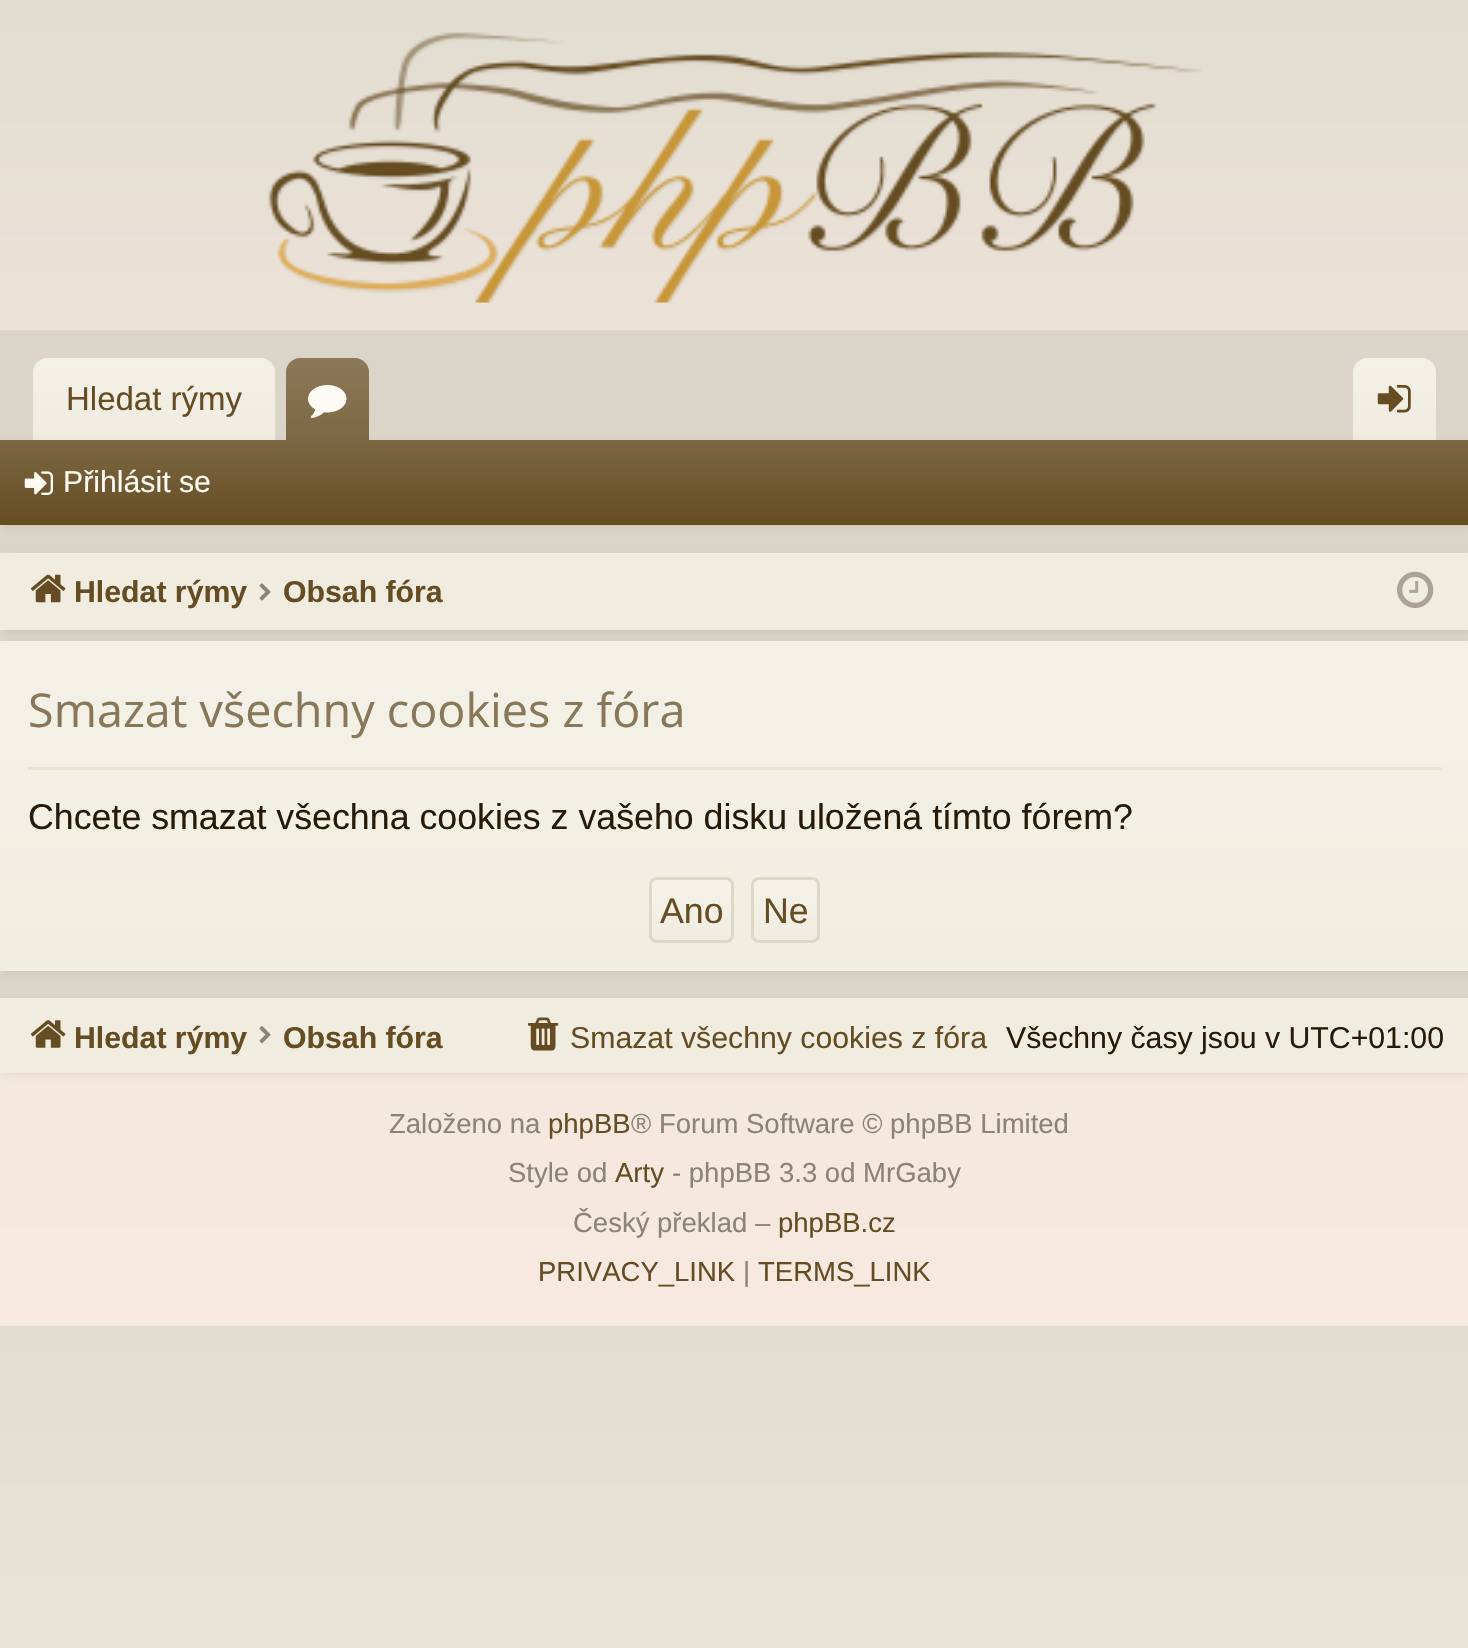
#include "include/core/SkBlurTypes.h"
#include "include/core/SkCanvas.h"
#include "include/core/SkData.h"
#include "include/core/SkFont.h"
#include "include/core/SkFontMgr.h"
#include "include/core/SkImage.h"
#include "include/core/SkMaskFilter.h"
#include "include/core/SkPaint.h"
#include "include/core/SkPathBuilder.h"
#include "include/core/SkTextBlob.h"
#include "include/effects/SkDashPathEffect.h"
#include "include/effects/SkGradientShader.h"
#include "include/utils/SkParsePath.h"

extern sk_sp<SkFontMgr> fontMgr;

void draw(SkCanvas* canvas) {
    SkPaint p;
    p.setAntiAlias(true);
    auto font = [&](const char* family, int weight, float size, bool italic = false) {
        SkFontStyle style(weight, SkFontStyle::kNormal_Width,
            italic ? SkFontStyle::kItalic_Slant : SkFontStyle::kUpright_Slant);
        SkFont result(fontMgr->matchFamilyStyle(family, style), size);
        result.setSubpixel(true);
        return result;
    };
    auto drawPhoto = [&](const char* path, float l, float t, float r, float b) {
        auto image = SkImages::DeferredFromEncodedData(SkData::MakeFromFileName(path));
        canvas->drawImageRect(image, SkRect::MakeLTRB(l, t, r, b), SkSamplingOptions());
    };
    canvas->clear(0xFFFFFFFF);
    {
        const SkColor colors[] = {0xFFE2DDD1, 0xFFECE9DC, 0xFFF0EEE0};
        const float stops[] = {0, 0.41f, 1};
        const SkPoint ends[] = {{734, 1326}, {734, 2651}};
        p.setShader(SkGradientShader::MakeLinear(ends, colors, stops, 3, SkTileMode::kClamp));
        p.setAlpha(255);
    }
    canvas->drawRect(SkRect::MakeLTRB(0, 1326, 1468, 1648), p);
    {
        const SkColor colors[] = {0xFFE2DDD1, 0xFFF1E5DC, 0xFFF7E9E0};
        const float stops[] = {0, 0.41f, 1};
        const SkPoint ends[] = {{734, 0}, {734, 1326}};
        p.setShader(SkGradientShader::MakeLinear(ends, colors, stops, 3, SkTileMode::kClamp));
        p.setAlpha(255);
    }
    canvas->drawRect(SkRect::MakeLTRB(0, 0, 1468, 1326), p);
    drawPhoto("media/1.png", 268, 32, 1202, 303);
    p.setShader(nullptr);
    p.setColor(0xFFDBD5C9);
    canvas->drawRect(SkRect::MakeLTRB(0, 330, 1468, 998), p);
    p.setColor(0xFFF0ECE0);
    canvas->drawPath(SkPathBuilder().moveTo(47, 358).lineTo(261, 358).cubicTo(268.5f, 358, 275, 364.5f, 275, 372).lineTo(275, 440).lineTo(33, 440).lineTo(33, 372).cubicTo(33, 364.5f, 39.5f, 358, 47, 358).close().detach(), p);
    {
        const SkColor colors[] = {0x40FFFFFF, 0x00FFFFFF};
        const float stops[] = {0, 1};
        const SkPoint ends[] = {{154, 358}, {154, 440}};
        p.setShader(SkGradientShader::MakeLinear(ends, colors, stops, 2, SkTileMode::kClamp));
        p.setAlpha(255);
    }
    canvas->drawPath(SkPathBuilder().moveTo(47, 358).lineTo(261, 358).cubicTo(268.5f, 358, 275, 364.5f, 275, 372).lineTo(275, 440).lineTo(33, 440).lineTo(33, 372).cubicTo(33, 364.5f, 39.5f, 358, 47, 358).close().detach(), p);
    auto font1 = font("Liberation Sans", 400, 33);
    p.setShader(nullptr);
    p.setColor(0xFF654C22);
    canvas->drawString("Hledat rýmy", 66, 410, font1, p);
    canvas->drawPath(SkPathBuilder().moveTo(300, 358).lineTo(355, 358).cubicTo(362.5f, 358, 369, 364.5f, 369, 372).lineTo(369, 440).lineTo(286, 440).lineTo(286, 372).cubicTo(286, 364.5f, 292.5f, 358, 300, 358).close().detach(), p);
    {
        const SkColor colors[] = {0x40FFFFFF, 0x26FFFFFF};
        const float stops[] = {0, 1};
        const SkPoint ends[] = {{327, 358}, {327, 440}};
        p.setShader(SkGradientShader::MakeLinear(ends, colors, stops, 2, SkTileMode::kClamp));
        p.setAlpha(255);
    }
    canvas->drawPath(SkPathBuilder().moveTo(300, 358).lineTo(355, 358).cubicTo(362.5f, 358, 369, 364.5f, 369, 372).lineTo(369, 440).lineTo(286, 440).lineTo(286, 372).cubicTo(286, 364.5f, 292.5f, 358, 300, 358).close().detach(), p);
    drawPhoto("media/2.png", 308, 385, 347, 418);
    p.setShader(nullptr);
    p.setColor(0xFFF0ECE0);
    canvas->drawPath(SkPathBuilder().moveTo(1367, 358).lineTo(1422, 358).cubicTo(1429.5f, 358, 1436, 364.5f, 1436, 372).lineTo(1436, 440).lineTo(1353, 440).lineTo(1353, 372).cubicTo(1353, 364.5f, 1359.5f, 358, 1367, 358).close().detach(), p);
    {
        const SkColor colors[] = {0x40FFFFFF, 0x00FFFFFF};
        const float stops[] = {0, 1};
        const SkPoint ends[] = {{1394, 358}, {1394, 440}};
        p.setShader(SkGradientShader::MakeLinear(ends, colors, stops, 2, SkTileMode::kClamp));
        p.setAlpha(255);
    }
    canvas->drawPath(SkPathBuilder().moveTo(1367, 358).lineTo(1422, 358).cubicTo(1429.5f, 358, 1436, 364.5f, 1436, 372).lineTo(1436, 440).lineTo(1353, 440).lineTo(1353, 372).cubicTo(1353, 364.5f, 1359.5f, 358, 1367, 358).close().detach(), p);
    p.setShader(nullptr);
    p.setColor(0x1A654C22);
    p.setMaskFilter(SkMaskFilter::MakeBlur(kNormal_SkBlurStyle, 4));
    canvas->drawRect(SkRect::MakeLTRB(3, 443, 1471, 528), p);
    p.setMaskFilter(nullptr);
    {
        const SkColor colors[] = {0xFF7C6743, 0xFF654C22};
        const float stops[] = {0, 1};
        const SkPoint ends[] = {{734, 440}, {734, 525}};
        p.setShader(SkGradientShader::MakeLinear(ends, colors, stops, 2, SkTileMode::kClamp));
        p.setAlpha(255);
    }
    canvas->drawRect(SkRect::MakeLTRB(0, 440, 1468, 525), p);
    p.setShader(nullptr);
    p.setColor(0xFF654C22);
    canvas->drawPath(SkPathBuilder().moveTo(292, 437).lineTo(363, 437).cubicTo(366.5f, 437, 369, 439.5f, 369, 443).lineTo(286, 443).cubicTo(286, 439.5f, 288.5f, 437, 292, 437).close().detach(), p);
    p.setColor(0x26FFFFFF);
    canvas->drawPath(SkPathBuilder().moveTo(292, 437).lineTo(363, 437).cubicTo(366.5f, 437, 369, 439.5f, 369, 443).lineTo(286, 443).cubicTo(286, 439.5f, 288.5f, 437, 292, 437).close().detach(), p);
    drawPhoto("media/3.png", 1377, 385, 1411, 413);
    drawPhoto("media/4.png", 24, 471, 54, 495);
    auto font2 = font("Liberation Sans", 400, 30.25f);
    p.setColor(0xFFFEFBF5);
    canvas->drawString("Přihlásit se", 63, 492, font2, p);
    p.setColor(0x1A654C22);
    p.setMaskFilter(SkMaskFilter::MakeBlur(kNormal_SkBlurStyle, 4));
    canvas->drawRect(SkRect::MakeLTRB(3, 556, 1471, 633), p);
    p.setMaskFilter(nullptr);
    p.setColor(0xFFF0ECE0);
    canvas->drawRect(SkRect::MakeLTRB(0, 553, 1468, 630), p);
    drawPhoto("media/5.png", 30, 574, 66, 603);
    auto font3 = font("Liberation Sans", 700, 30.25f);
    p.setColor(0xFF654C22);
    canvas->drawString("Hledat rýmy", 74, 602, font3, p);
    drawPhoto("media/6.png", 259, 583, 271, 601);
    canvas->drawString("Obsah fóra", 283, 602, font3, p);
    drawPhoto("media/7.png", 1397, 571, 1434, 608);
    p.setColor(0x1A654C22);
    p.setMaskFilter(SkMaskFilter::MakeBlur(kNormal_SkBlurStyle, 4));
    canvas->drawRect(SkRect::MakeLTRB(3, 644, 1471, 974), p);
    p.setMaskFilter(nullptr);
    {
        const SkColor colors[] = {0xFFF4F2E8, 0xFFF0EEE0};
        const float stops[] = {0, 1};
        const SkPoint ends[] = {{734, 641}, {734, 971}};
        p.setShader(SkGradientShader::MakeLinear(ends, colors, stops, 2, SkTileMode::kClamp));
        p.setAlpha(255);
    }
    canvas->drawRect(SkRect::MakeLTRB(0, 641, 1468, 971), p);
    p.setShader(nullptr);
    p.setColor(0xFFE8E1CF);
    canvas->drawRect(SkRect::MakeLTRB(28, 767, 1441, 770), p);
    auto font4 = font("Open Sans", 400, 46.75f);
    p.setColor(0xFF897759);
    canvas->drawString("Smazat všechny cookies z fóra", 28, 727, font4, p);
    auto font5 = font("Liberation Sans", 400, 35.75f);
    p.setColor(0xFF271B08);
    canvas->drawString("Chcete smazat všechna cookies z vašeho disku uložená tímto fórem?", 28, 829, font5, p);
    canvas->save();
    canvas->clipPath(SkPathBuilder().moveTo(657, 877).lineTo(726, 877).cubicTo(730.5f, 877, 734, 880.5f, 734, 885).lineTo(734, 935).cubicTo(734, 939.5f, 730.5f, 943, 726, 943).lineTo(657, 943).cubicTo(652.5f, 943, 649, 939.5f, 649, 935).lineTo(649, 885).cubicTo(649, 880.5f, 652.5f, 877, 657, 877).close().detach(), true);
    {
        const SkColor colors[] = {0xFFF5F2E9, 0xFFF0ECE0};
        const float stops[] = {0, 1};
        const SkPoint ends[] = {{692, 880}, {692, 941}};
        p.setShader(SkGradientShader::MakeLinear(ends, colors, stops, 2, SkTileMode::kClamp));
        p.setAlpha(255);
    }
    canvas->drawRect(SkRect::MakeLTRB(649, 880, 734, 941), p);
    canvas->restore();
    p.setStyle(SkPaint::kStroke_Style);
    p.setStrokeWidth(3);
    p.setShader(nullptr);
    p.setColor(0xFFDDD7C8);
    canvas->drawRoundRect(SkRect::MakeLTRB(650.5f, 878.5f, 732.5f, 941.5f), 6.5f, 6.5f, p);
    p.setStyle(SkPaint::kFill_Style);
    p.setColor(0xFF654C22);
    canvas->drawString("Ano", 660, 923, font5, p);
    canvas->save();
    canvas->clipPath(SkPathBuilder().moveTo(759, 877).lineTo(812, 877).cubicTo(816.5f, 877, 820, 880.5f, 820, 885).lineTo(820, 935).cubicTo(820, 939.5f, 816.5f, 943, 812, 943).lineTo(759, 943).cubicTo(754.5f, 943, 751, 939.5f, 751, 935).lineTo(751, 885).cubicTo(751, 880.5f, 754.5f, 877, 759, 877).close().detach(), true);
    {
        const SkColor colors[] = {0xFFF5F2E9, 0xFFF0ECE0};
        const float stops[] = {0, 1};
        const SkPoint ends[] = {{785, 880}, {785, 941}};
        p.setShader(SkGradientShader::MakeLinear(ends, colors, stops, 2, SkTileMode::kClamp));
        p.setAlpha(255);
    }
    canvas->drawRect(SkRect::MakeLTRB(751, 880, 820, 941), p);
    canvas->restore();
    p.setStyle(SkPaint::kStroke_Style);
    p.setShader(nullptr);
    p.setColor(0xFFDDD7C8);
    canvas->drawRoundRect(SkRect::MakeLTRB(752.5f, 878.5f, 818.5f, 941.5f), 6.5f, 6.5f, p);
    p.setStyle(SkPaint::kFill_Style);
    p.setColor(0xFF654C22);
    canvas->drawString("Ne", 763, 923, font5, p);
    p.setColor(0x1A654C22);
    p.setMaskFilter(SkMaskFilter::MakeBlur(kNormal_SkBlurStyle, 4));
    canvas->drawRect(SkRect::MakeLTRB(3, 1001, 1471, 1075), p);
    p.setMaskFilter(nullptr);
    p.setColor(0xFFF0ECE0);
    canvas->drawRect(SkRect::MakeLTRB(0, 998, 1468, 1073), p);
    drawPhoto("media/8.png", 30, 1020, 66, 1048);
    p.setColor(0xFF654C22);
    canvas->drawString("Hledat rýmy", 74, 1048, font3, p);
    drawPhoto("media/9.png", 259, 1026, 271, 1044);
    canvas->drawString("Obsah fóra", 283, 1048, font3, p);
    drawPhoto("media/10.png", 528, 1017, 559, 1051);
    canvas->drawString("Smazat všechny cookies z fóra", 570, 1048, font2, p);
    p.setColor(0xFF271B08);
    canvas->drawString("Všechny časy jsou v UTC+01:00", 1006, 1048, font2, p);
    auto font6 = font("Liberation Sans", 400, 27.5f);
    p.setColor(0xFF8B8374);
    canvas->drawString("Založeno na", 389, 1133, font6, p);
    p.setColor(0xFF654C22);
    canvas->drawString("phpBB", 548, 1133, font6, p);
    p.setColor(0xFF8B8374);
    canvas->drawString("® Forum Software © phpBB Limited", 631, 1133, font6, p);
    canvas->drawString("Style od", 508, 1182, font6, p);
    p.setColor(0xFF654C22);
    canvas->drawString("Arty", 615, 1182, font6, p);
    p.setColor(0xFF8B8374);
    canvas->drawString("- phpBB 3.3 od MrGaby", 672, 1182, font6, p);
    canvas->drawString("Český překlad –", 573, 1232, font6, p);
    p.setColor(0xFF654C22);
    canvas->drawString("phpBB.cz", 778, 1232, font6, p);
    canvas->drawString("PRIVACY_LINK", 538, 1281, font6, p);
    p.setColor(0xFF8B8374);
    canvas->drawString("|", 743, 1281, font6, p);
    p.setColor(0xFF654C22);
    canvas->drawString("TERMS_LINK", 758, 1281, font6, p);
}
